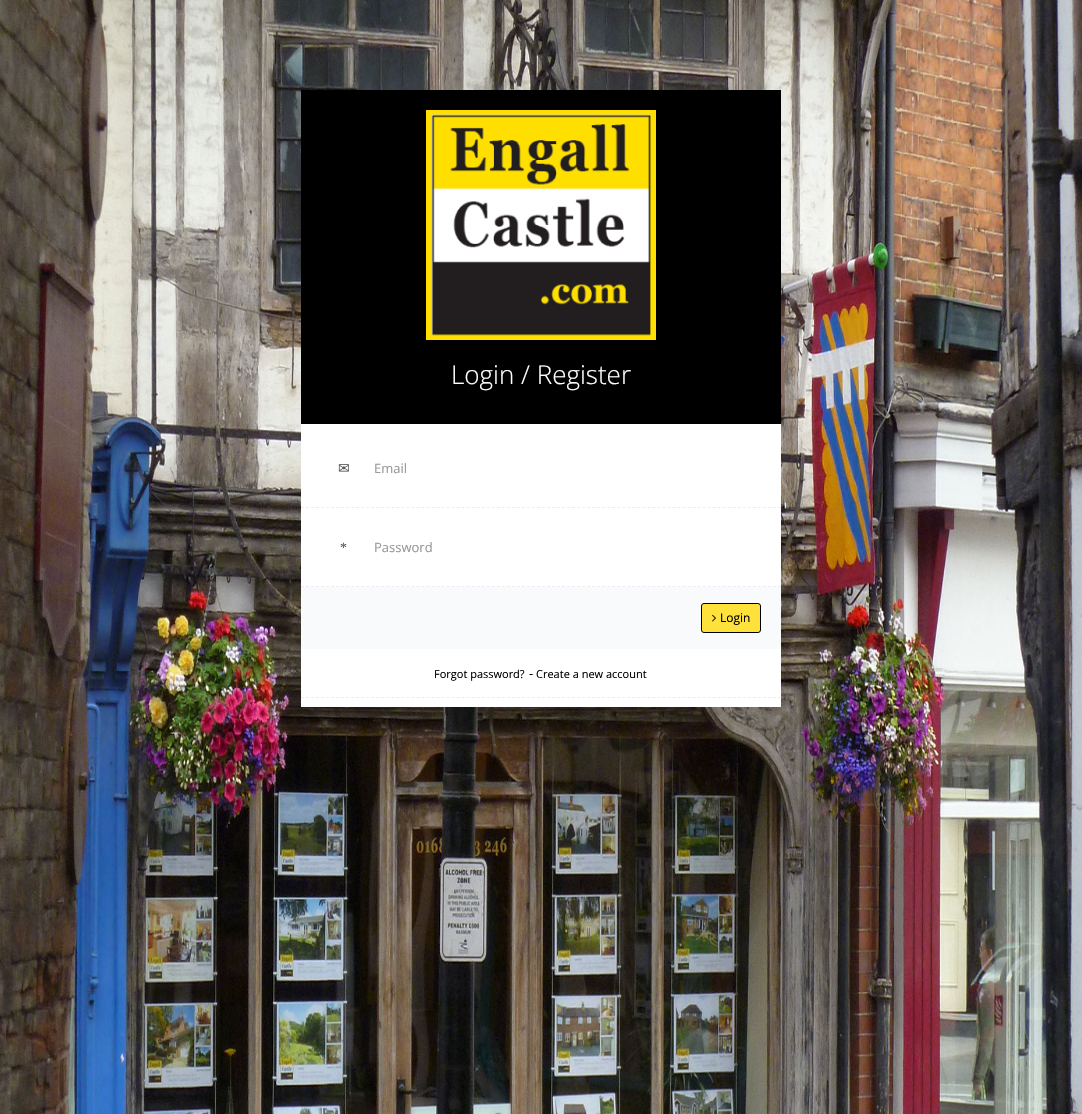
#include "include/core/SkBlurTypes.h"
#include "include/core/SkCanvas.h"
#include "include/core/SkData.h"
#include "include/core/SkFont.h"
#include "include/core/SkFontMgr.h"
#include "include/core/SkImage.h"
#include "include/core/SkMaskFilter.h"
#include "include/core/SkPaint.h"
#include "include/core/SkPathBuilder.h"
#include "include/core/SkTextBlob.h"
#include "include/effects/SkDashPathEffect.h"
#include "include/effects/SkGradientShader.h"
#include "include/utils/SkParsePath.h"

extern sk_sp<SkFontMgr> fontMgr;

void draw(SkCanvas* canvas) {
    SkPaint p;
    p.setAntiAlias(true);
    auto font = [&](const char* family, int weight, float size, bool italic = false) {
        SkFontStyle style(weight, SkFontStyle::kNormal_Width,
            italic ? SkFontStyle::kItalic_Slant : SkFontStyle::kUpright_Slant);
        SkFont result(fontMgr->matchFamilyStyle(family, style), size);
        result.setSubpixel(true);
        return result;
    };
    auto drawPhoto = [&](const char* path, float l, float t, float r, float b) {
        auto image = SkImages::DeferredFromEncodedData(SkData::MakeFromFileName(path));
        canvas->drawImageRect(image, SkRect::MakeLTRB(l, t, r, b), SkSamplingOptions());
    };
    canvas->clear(0xFFFFFFFF);
    drawPhoto("media/1.png", 0, 0, 1082, 1114);
    p.setColor(0xFF000000);
    canvas->drawRect(SkRect::MakeLTRB(301, 90, 781, 424), p);
    drawPhoto("media/2.png", 426, 110, 656, 340);
    auto font1 = font("Open Sans", 300, 26);
    p.setColor(0xFFFFFFFF);
    canvas->drawString("Login / Register", 451, 384, font1, p);
    canvas->drawRect(SkRect::MakeLTRB(301, 424, 781, 707), p);
    p.setStyle(SkPaint::kStroke_Style);
    p.setStrokeWidth(1);
    p.setColor(0xFFEAEDF1);
    p.setPathEffect(SkDashPathEffect::Make({{3, 2.02f}}, 0));
    canvas->drawPath(SkPathBuilder().moveTo(301, 507.5f).lineTo(781, 507.5f).detach(), p);
    p.setPathEffect(nullptr);
    auto font2 = font("DejaVu Sans", 400, 14);
    p.setStyle(SkPaint::kFill_Style);
    p.setColor(0xFF555555);
    canvas->drawString("✉", 338, 473, font2, p);
    auto font3 = font("Open Sans", 400, 13);
    p.setColor(0xFF999999);
    canvas->drawString("Email", 374, 473, font3, p);
    p.setStyle(SkPaint::kStroke_Style);
    p.setColor(0xFFEAEDF1);
    p.setPathEffect(SkDashPathEffect::Make({{3, 2.02f}}, 0));
    canvas->drawPath(SkPathBuilder().moveTo(301, 586.5f).lineTo(781, 586.5f).detach(), p);
    p.setPathEffect(nullptr);
    auto font4 = font("Liberation Serif", 400, 14);
    p.setStyle(SkPaint::kFill_Style);
    p.setColor(0xFF555555);
    canvas->drawString("*", 340, 552, font4, p);
    p.setColor(0xFF999999);
    canvas->drawString("Password", 374, 552, font3, p);
    p.setColor(0xFFF9FAFC);
    canvas->drawRect(SkRect::MakeLTRB(301, 587, 781, 649), p);
    p.setColor(0xFFFEE13B);
    canvas->drawRoundRect(SkRect::MakeLTRB(701.5f, 603.5f, 760.5f, 632.5f), 2.5f, 2.5f, p);
    p.setStyle(SkPaint::kStroke_Style);
    p.setColor(0xFF000000);
    canvas->drawRoundRect(SkRect::MakeLTRB(701.5f, 603.5f, 760.5f, 632.5f), 2.5f, 2.5f, p);
    drawPhoto("media/3.png", 712, 614, 716, 622);
    auto font5 = font("Open Sans", 400, 12);
    p.setStyle(SkPaint::kFill_Style);
    canvas->drawString("Login", 720, 622, font5, p);
    p.setStyle(SkPaint::kStroke_Style);
    p.setColor(0xFFEAEDF1);
    p.setPathEffect(SkDashPathEffect::Make({{3, 2.02f}}, 0));
    canvas->drawPath(SkPathBuilder().moveTo(301, 697.5f).lineTo(781, 697.5f).detach(), p);
    p.setPathEffect(nullptr);
    auto font6 = font("Open Sans", 400, 11);
    p.setStyle(SkPaint::kFill_Style);
    p.setColor(0xFF000000);
    canvas->drawString("Forgot password?", 434, 678, font6, p);
    canvas->drawString("-", 529, 678, font3, p);
    canvas->drawString("Create a new account", 536, 678, font6, p);
}
